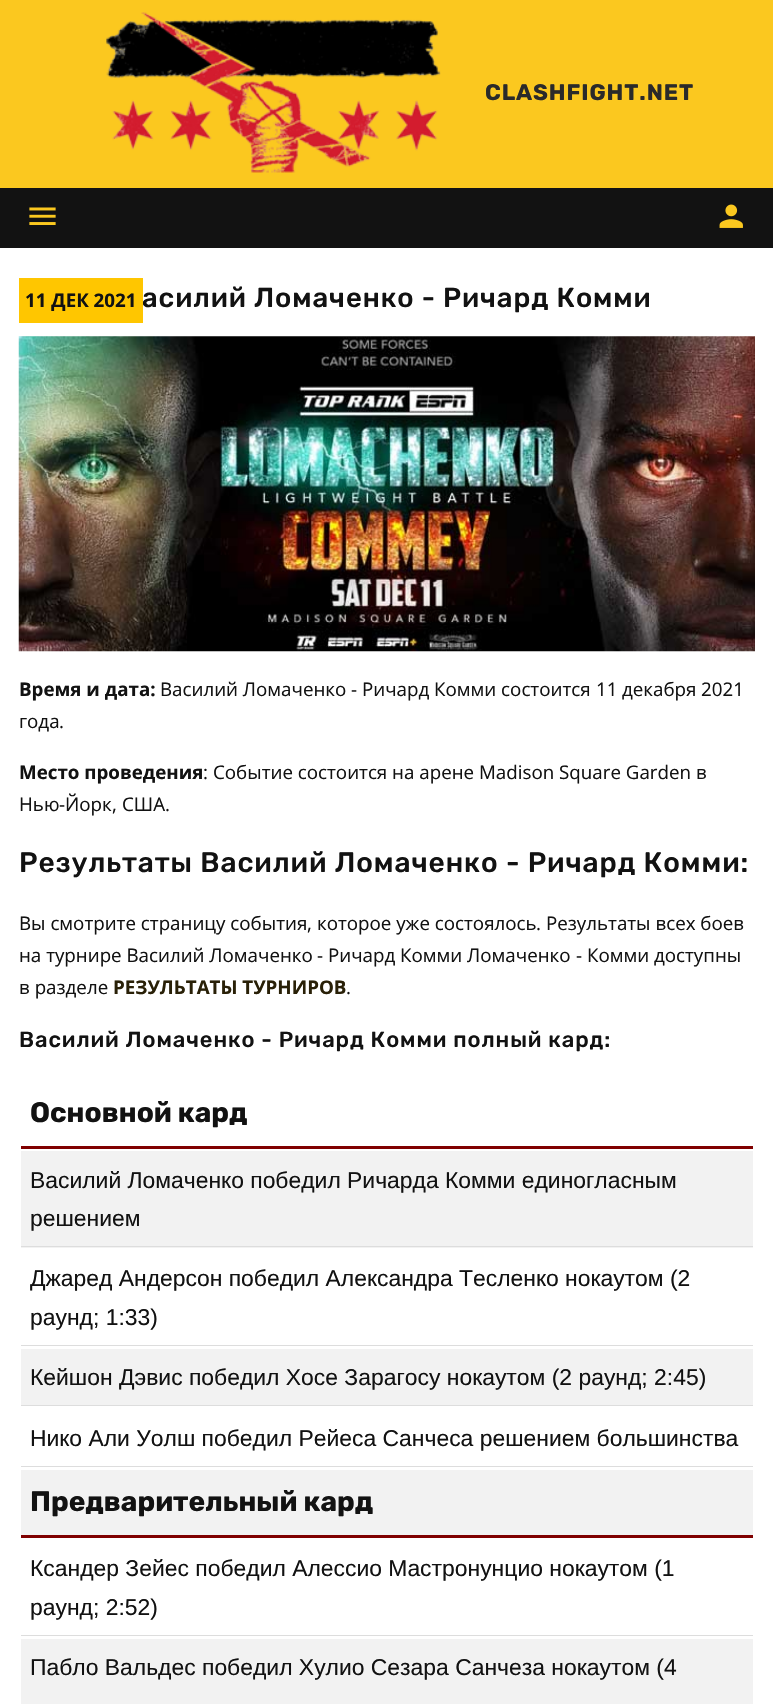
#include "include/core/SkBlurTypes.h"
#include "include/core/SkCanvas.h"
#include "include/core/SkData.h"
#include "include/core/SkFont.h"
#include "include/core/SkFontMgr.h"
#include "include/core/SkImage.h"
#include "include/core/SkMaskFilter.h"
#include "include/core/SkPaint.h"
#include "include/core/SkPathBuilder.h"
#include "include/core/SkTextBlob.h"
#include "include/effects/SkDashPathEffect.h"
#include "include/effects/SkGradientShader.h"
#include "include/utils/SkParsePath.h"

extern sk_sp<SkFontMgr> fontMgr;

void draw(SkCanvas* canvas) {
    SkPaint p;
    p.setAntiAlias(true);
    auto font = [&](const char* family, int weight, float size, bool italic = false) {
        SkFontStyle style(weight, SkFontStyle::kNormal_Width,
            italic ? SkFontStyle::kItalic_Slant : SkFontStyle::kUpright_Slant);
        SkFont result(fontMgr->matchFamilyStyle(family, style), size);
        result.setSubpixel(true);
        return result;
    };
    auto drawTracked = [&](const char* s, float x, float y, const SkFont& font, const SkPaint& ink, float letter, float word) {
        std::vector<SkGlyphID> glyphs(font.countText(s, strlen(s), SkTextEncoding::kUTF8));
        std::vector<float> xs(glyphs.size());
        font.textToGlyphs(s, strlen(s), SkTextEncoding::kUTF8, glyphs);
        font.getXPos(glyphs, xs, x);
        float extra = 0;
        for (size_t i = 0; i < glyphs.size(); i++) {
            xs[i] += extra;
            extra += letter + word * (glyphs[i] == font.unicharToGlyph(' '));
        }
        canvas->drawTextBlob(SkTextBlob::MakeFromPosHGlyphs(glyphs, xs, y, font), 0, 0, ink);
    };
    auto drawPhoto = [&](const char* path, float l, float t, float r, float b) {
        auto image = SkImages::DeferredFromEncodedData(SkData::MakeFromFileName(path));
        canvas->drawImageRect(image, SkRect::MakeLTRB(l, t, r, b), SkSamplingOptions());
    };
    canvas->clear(0xFFFBC81F);
    drawPhoto("media/1.png", 106, 12, 441, 173);
    auto font1 = font("Rubik", 700, 22.5f);
    p.setColor(0xFF2A2A2A);
    drawTracked("CLASHFIGHT.NET", 485, 100, font1, p, 0.9f, 0);
    p.setColor(0xFF121212);
    canvas->drawRect(SkRect::MakeLTRB(0, 188, 773, 248), p);
    drawPhoto("media/2.png", 29, 207, 56, 225);
    drawPhoto("media/3.png", 719, 204, 743, 228);
    p.setColor(0xFFFFFFFF);
    canvas->drawRect(SkRect::MakeLTRB(0, 248, 773, 1704), p);
    auto font2 = font("Rubik", 500, 27.5f);
    p.setColor(0xFF121212);
    drawTracked("асилий Ломаченко - Ричард Комми", 142, 307, font2, p, 0.9f, 0);
    p.setColor(0xFFFFC600);
    canvas->drawRect(SkRect::MakeLTRB(19, 278, 143, 323), p);
    auto font3 = font("Open Sans", 700, 18.75f);
    p.setColor(0xFF121212);
    canvas->drawString("11 ДЕК 2021", 25, 307, font3, p);
    drawPhoto("media/4.png", 18, 336, 755, 652);
    canvas->drawString("Время и дата:", 19, 696, font3, p);
    auto font4 = font("Open Sans", 400, 18.75f);
    canvas->drawString("Василий Ломаченко", 160, 696, font4, p);
    auto font5 = font("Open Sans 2", 400, 18.75f);
    canvas->drawString("-", 351, 696, font5, p);
    canvas->drawString("Ричард Комми состоится", 362, 696, font4, p);
    canvas->drawString("11", 596, 696, font5, p);
    canvas->drawString("декабря", 622, 696, font4, p);
    canvas->drawString("2021", 701, 696, font5, p);
    canvas->drawString("года", 19, 728, font4, p);
    canvas->drawString(".", 59, 728, font5, p);
    canvas->drawString("Место проведения", 19, 779, font3, p);
    canvas->drawString(":", 203, 779, font5, p);
    canvas->drawString("Событие состоится на арене", 213, 779, font4, p);
    canvas->drawString("Madison Square Garden", 479, 779, font5, p);
    canvas->drawString("в", 696, 779, font4, p);
    canvas->drawString("Нью", 19, 811, font4, p);
    canvas->drawString("-", 59, 811, font5, p);
    canvas->drawString("Йорк", 65, 811, font4, p);
    canvas->drawString("США", 122, 811, font4, p);
    canvas->drawString(",", 112, 811, font5, p);
    canvas->drawString(".", 165, 811, font5, p);
    auto font6 = font("Rubik", 500, 28.1f);
    drawTracked("Результаты Василий Ломаченко - Ричард Комми:", 19, 872, font6, p, 0.9f, 0);
    canvas->drawString("Вы смотрите страницу события", 19, 930, font4, p);
    canvas->drawString(",", 307, 930, font5, p);
    canvas->drawString("которое уже состоялось", 317, 930, font4, p);
    canvas->drawString(".", 536, 930, font5, p);
    canvas->drawString("Результаты всех боев", 546, 930, font4, p);
    canvas->drawString("на турнире Василий Ломаченко", 19, 962, font4, p);
    canvas->drawString("-", 317, 962, font5, p);
    canvas->drawString("Ричард Комми Ломаченко", 328, 962, font4, p);
    canvas->drawString("-", 576, 962, font5, p);
    canvas->drawString("Комми доступны", 587, 962, font4, p);
    canvas->drawString("в разделе", 19, 994, font4, p);
    p.setColor(0xFF292007);
    canvas->drawString("РЕЗУЛЬТАТЫ ТУРНИРОВ", 113, 994, font3, p);
    p.setColor(0xFF121212);
    canvas->drawString(".", 346, 994, font5, p);
    auto font7 = font("Rubik", 500, 21.95f);
    drawTracked("Василий Ломаченко - Ричард Комми полный кард:", 19, 1047, font7, p, 0.9f, 0);
    p.setColor(0xFF800000);
    canvas->drawRect(SkRect::MakeLTRB(21, 1146, 753, 1149), p);
    auto font8 = font("Rubik", 700, 28.1f);
    p.setColor(0xFF121212);
    canvas->drawString("Основной кард", 30, 1122, font8, p);
    p.setColor(0xFFF2F2F2);
    canvas->drawRect(SkRect::MakeLTRB(21, 1151, 753, 1248), p);
    p.setColor(0xFFDDDDDD);
    canvas->drawRect(SkRect::MakeLTRB(21, 1246, 753, 1247), p);
    auto font9 = font("Liberation Sans", 400, 22.9f);
    p.setColor(0xFF121212);
    canvas->drawString("Василий Ломаченко победил Ричарда Комми единогласным", 30, 1188, font9, p);
    canvas->drawString("решением", 30, 1226, font9, p);
    p.setColor(0xFFDDDDDD);
    canvas->drawRect(SkRect::MakeLTRB(21, 1345, 753, 1346), p);
    p.setColor(0xFF121212);
    canvas->drawString("Джаред Андерсон победил Александра Тесленко нокаутом (2", 30, 1286, font9, p);
    canvas->drawString("раунд; 1:33)", 30, 1325, font9, p);
    p.setColor(0xFFF2F2F2);
    canvas->drawRect(SkRect::MakeLTRB(21, 1349, 753, 1405), p);
    p.setColor(0xFFDDDDDD);
    canvas->drawRect(SkRect::MakeLTRB(21, 1405, 753, 1406), p);
    p.setColor(0xFF121212);
    canvas->drawString("Кейшон Дэвис победил Хосе Зарагосу нокаутом (2 раунд; 2:45)", 30, 1385, font9, p);
    p.setColor(0xFFDDDDDD);
    canvas->drawRect(SkRect::MakeLTRB(21, 1466, 753, 1467), p);
    p.setColor(0xFF121212);
    canvas->drawString("Нико Али Уолш победил Рейеса Санчеса решением большинства", 30, 1446, font9, p);
    p.setColor(0xFFF2F2F2);
    canvas->drawRect(SkRect::MakeLTRB(21, 1470, 753, 1535), p);
    p.setColor(0xFF800000);
    canvas->drawRect(SkRect::MakeLTRB(21, 1535, 753, 1538), p);
    p.setColor(0xFF121212);
    canvas->drawString("Предварительный кард", 30, 1511, font8, p);
    p.setColor(0xFFDDDDDD);
    canvas->drawRect(SkRect::MakeLTRB(21, 1635, 753, 1636), p);
    p.setColor(0xFF121212);
    canvas->drawString("Ксандер Зейес победил Алессио Мастронунцио нокаутом (1", 30, 1576, font9, p);
    canvas->drawString("раунд; 2:52)", 30, 1615, font9, p);
    p.setColor(0xFFF2F2F2);
    canvas->drawRect(SkRect::MakeLTRB(21, 1639, 753, 1704), p);
    p.setColor(0xFF121212);
    canvas->drawString("Пабло Вальдес победил Хулио Сезара Санчеза нокаутом (4", 30, 1675, font9, p);
}
